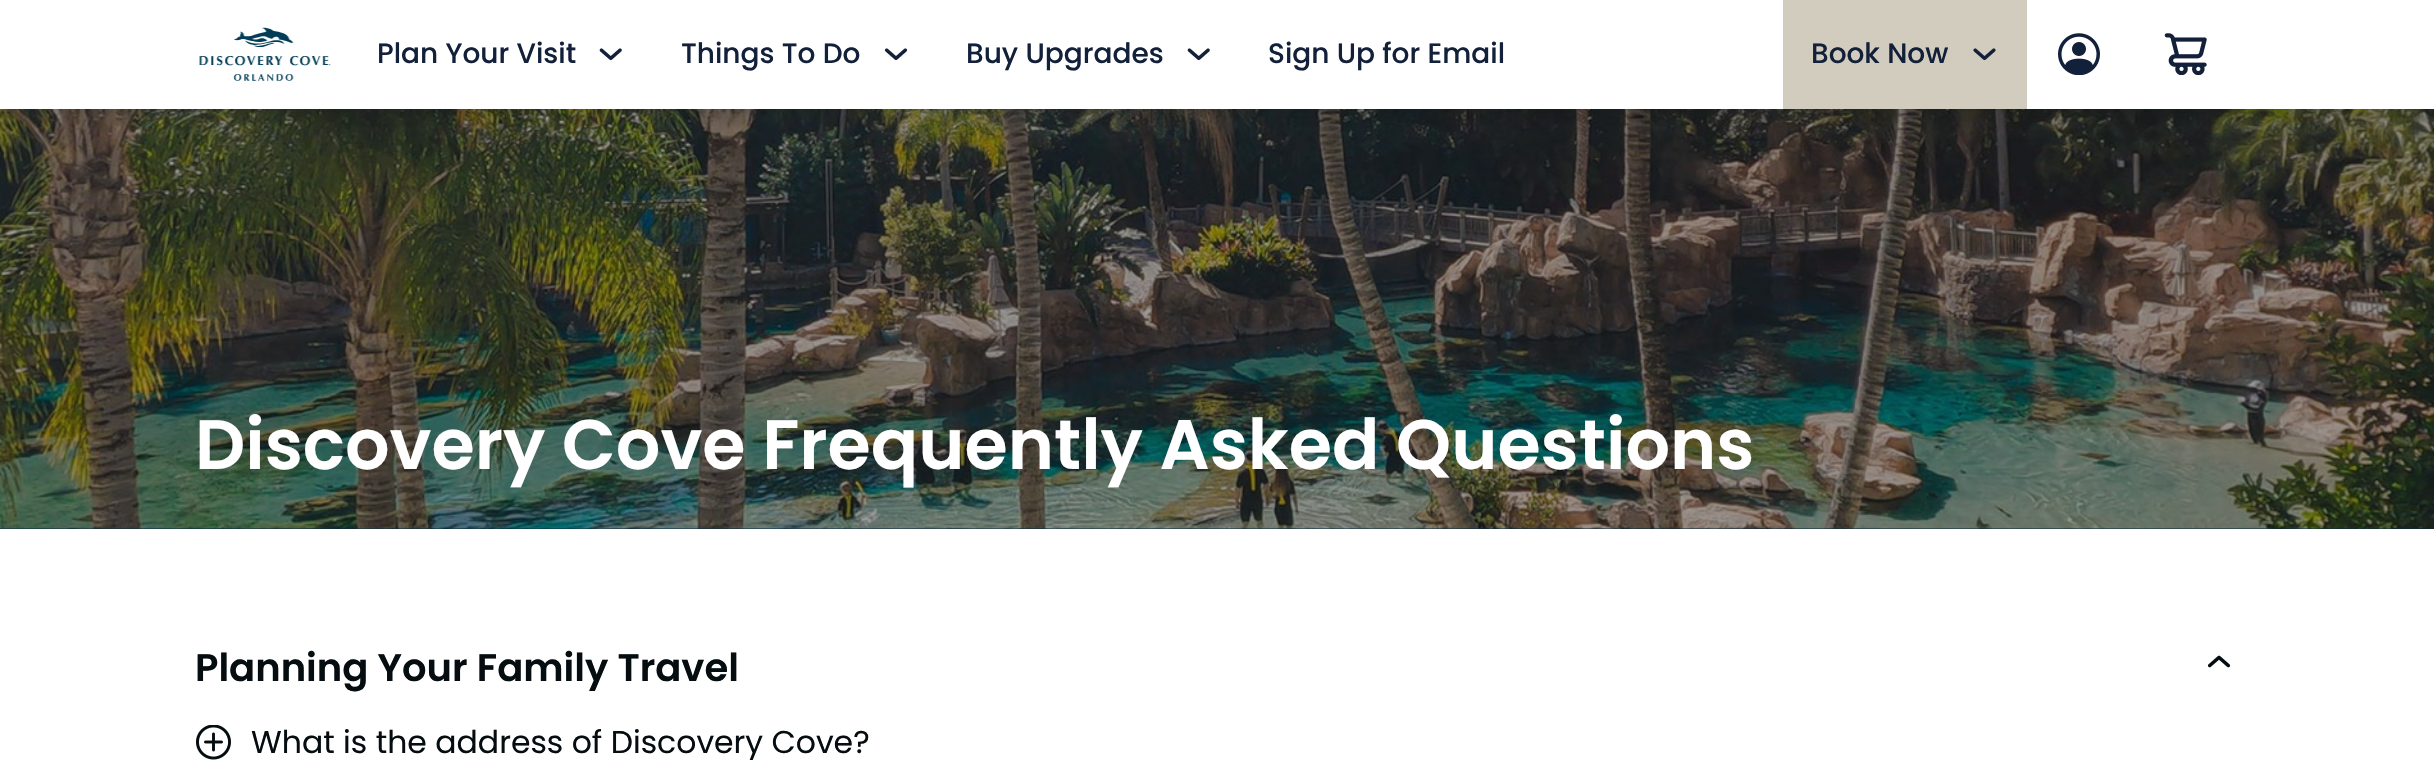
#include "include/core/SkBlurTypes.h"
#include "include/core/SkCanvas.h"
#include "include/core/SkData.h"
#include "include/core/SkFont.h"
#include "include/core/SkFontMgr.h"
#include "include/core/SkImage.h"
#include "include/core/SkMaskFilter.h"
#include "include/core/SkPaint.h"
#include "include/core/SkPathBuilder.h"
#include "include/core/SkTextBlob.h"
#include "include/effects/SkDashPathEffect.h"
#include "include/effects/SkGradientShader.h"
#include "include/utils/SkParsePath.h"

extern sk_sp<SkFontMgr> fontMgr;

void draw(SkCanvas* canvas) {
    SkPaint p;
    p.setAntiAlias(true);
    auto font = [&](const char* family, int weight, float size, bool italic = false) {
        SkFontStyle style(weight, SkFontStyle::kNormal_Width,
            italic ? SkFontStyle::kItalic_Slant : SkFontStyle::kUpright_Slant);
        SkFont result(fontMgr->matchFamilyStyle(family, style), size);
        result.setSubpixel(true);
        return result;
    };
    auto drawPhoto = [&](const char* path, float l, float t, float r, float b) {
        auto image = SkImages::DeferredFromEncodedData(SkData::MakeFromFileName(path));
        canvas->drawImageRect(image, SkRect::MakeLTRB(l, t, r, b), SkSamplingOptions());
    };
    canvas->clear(0xFFFFFFFF);
    p.setColor(0xFF02293D);
    canvas->drawRect(SkRect::MakeLTRB(0, 528, 2434, 529), p);
    drawPhoto("media/7.png", 0, 109, 2434, 529);
    p.setColor(0x33050D11);
    p.setMaskFilter(SkMaskFilter::MakeBlur(kNormal_SkBlurStyle, 9));
    canvas->drawRect(SkRect::MakeLTRB(0, 4, 2434, 112), p);
    p.setMaskFilter(nullptr);
    p.setColor(0xFFFFFFFF);
    canvas->drawRect(SkRect::MakeLTRB(0, 0, 2434, 109), p);
    drawPhoto("media/1.png", 199, 27, 331, 81);
    auto font1 = font("Poppins", 500, 28);
    p.setColor(0xFF13203A);
    canvas->drawString("Plan Your Visit", 377, 63, font1, p);
    drawPhoto("media/2.png", 599, 48, 622, 61);
    canvas->drawString("Things To Do", 681, 63, font1, p);
    drawPhoto("media/3.png", 884, 48, 908, 60);
    canvas->drawString("Buy Upgrades", 966, 63, font1, p);
    drawPhoto("media/2.png", 1187, 48, 1210, 61);
    canvas->drawString("Sign Up for Email", 1268, 63, font1, p);
    p.setColor(0xFFD1CCBD);
    canvas->drawRect(SkRect::MakeLTRB(1783, 0, 2027, 109), p);
    p.setColor(0xFF13203A);
    canvas->drawString("Book Now", 1811, 63, font1, p);
    drawPhoto("media/4.png", 1973, 48, 1996, 61);
    drawPhoto("media/5.png", 2058, 33, 2100, 75);
    drawPhoto("media/6.png", 2164, 33, 2207, 75);
    auto font2 = font("Poppins", 600, 70);
    p.setColor(0xFFFFFFFF);
    canvas->drawString("Discovery Cove Frequently Asked Questions", 195, 469, font2, p);
    auto font3 = font("Poppins", 600, 38.5f);
    p.setColor(0xFF050D11);
    canvas->drawString("Planning Your Family Travel", 195, 681, font3, p);
    drawPhoto("media/8.png", 2207, 655, 2231, 668);
    drawPhoto("media/9.png", 196, 725, 231, 760);
    canvas->save();
    canvas->clipRect(SkRect::MakeLTRB(196, 697, 2240, 760));
    auto font4 = font("Poppins", 400, 31.5f);
    canvas->drawString("What is the address of Discovery Cove?", 251, 753, font4, p);
    canvas->restore();
}
